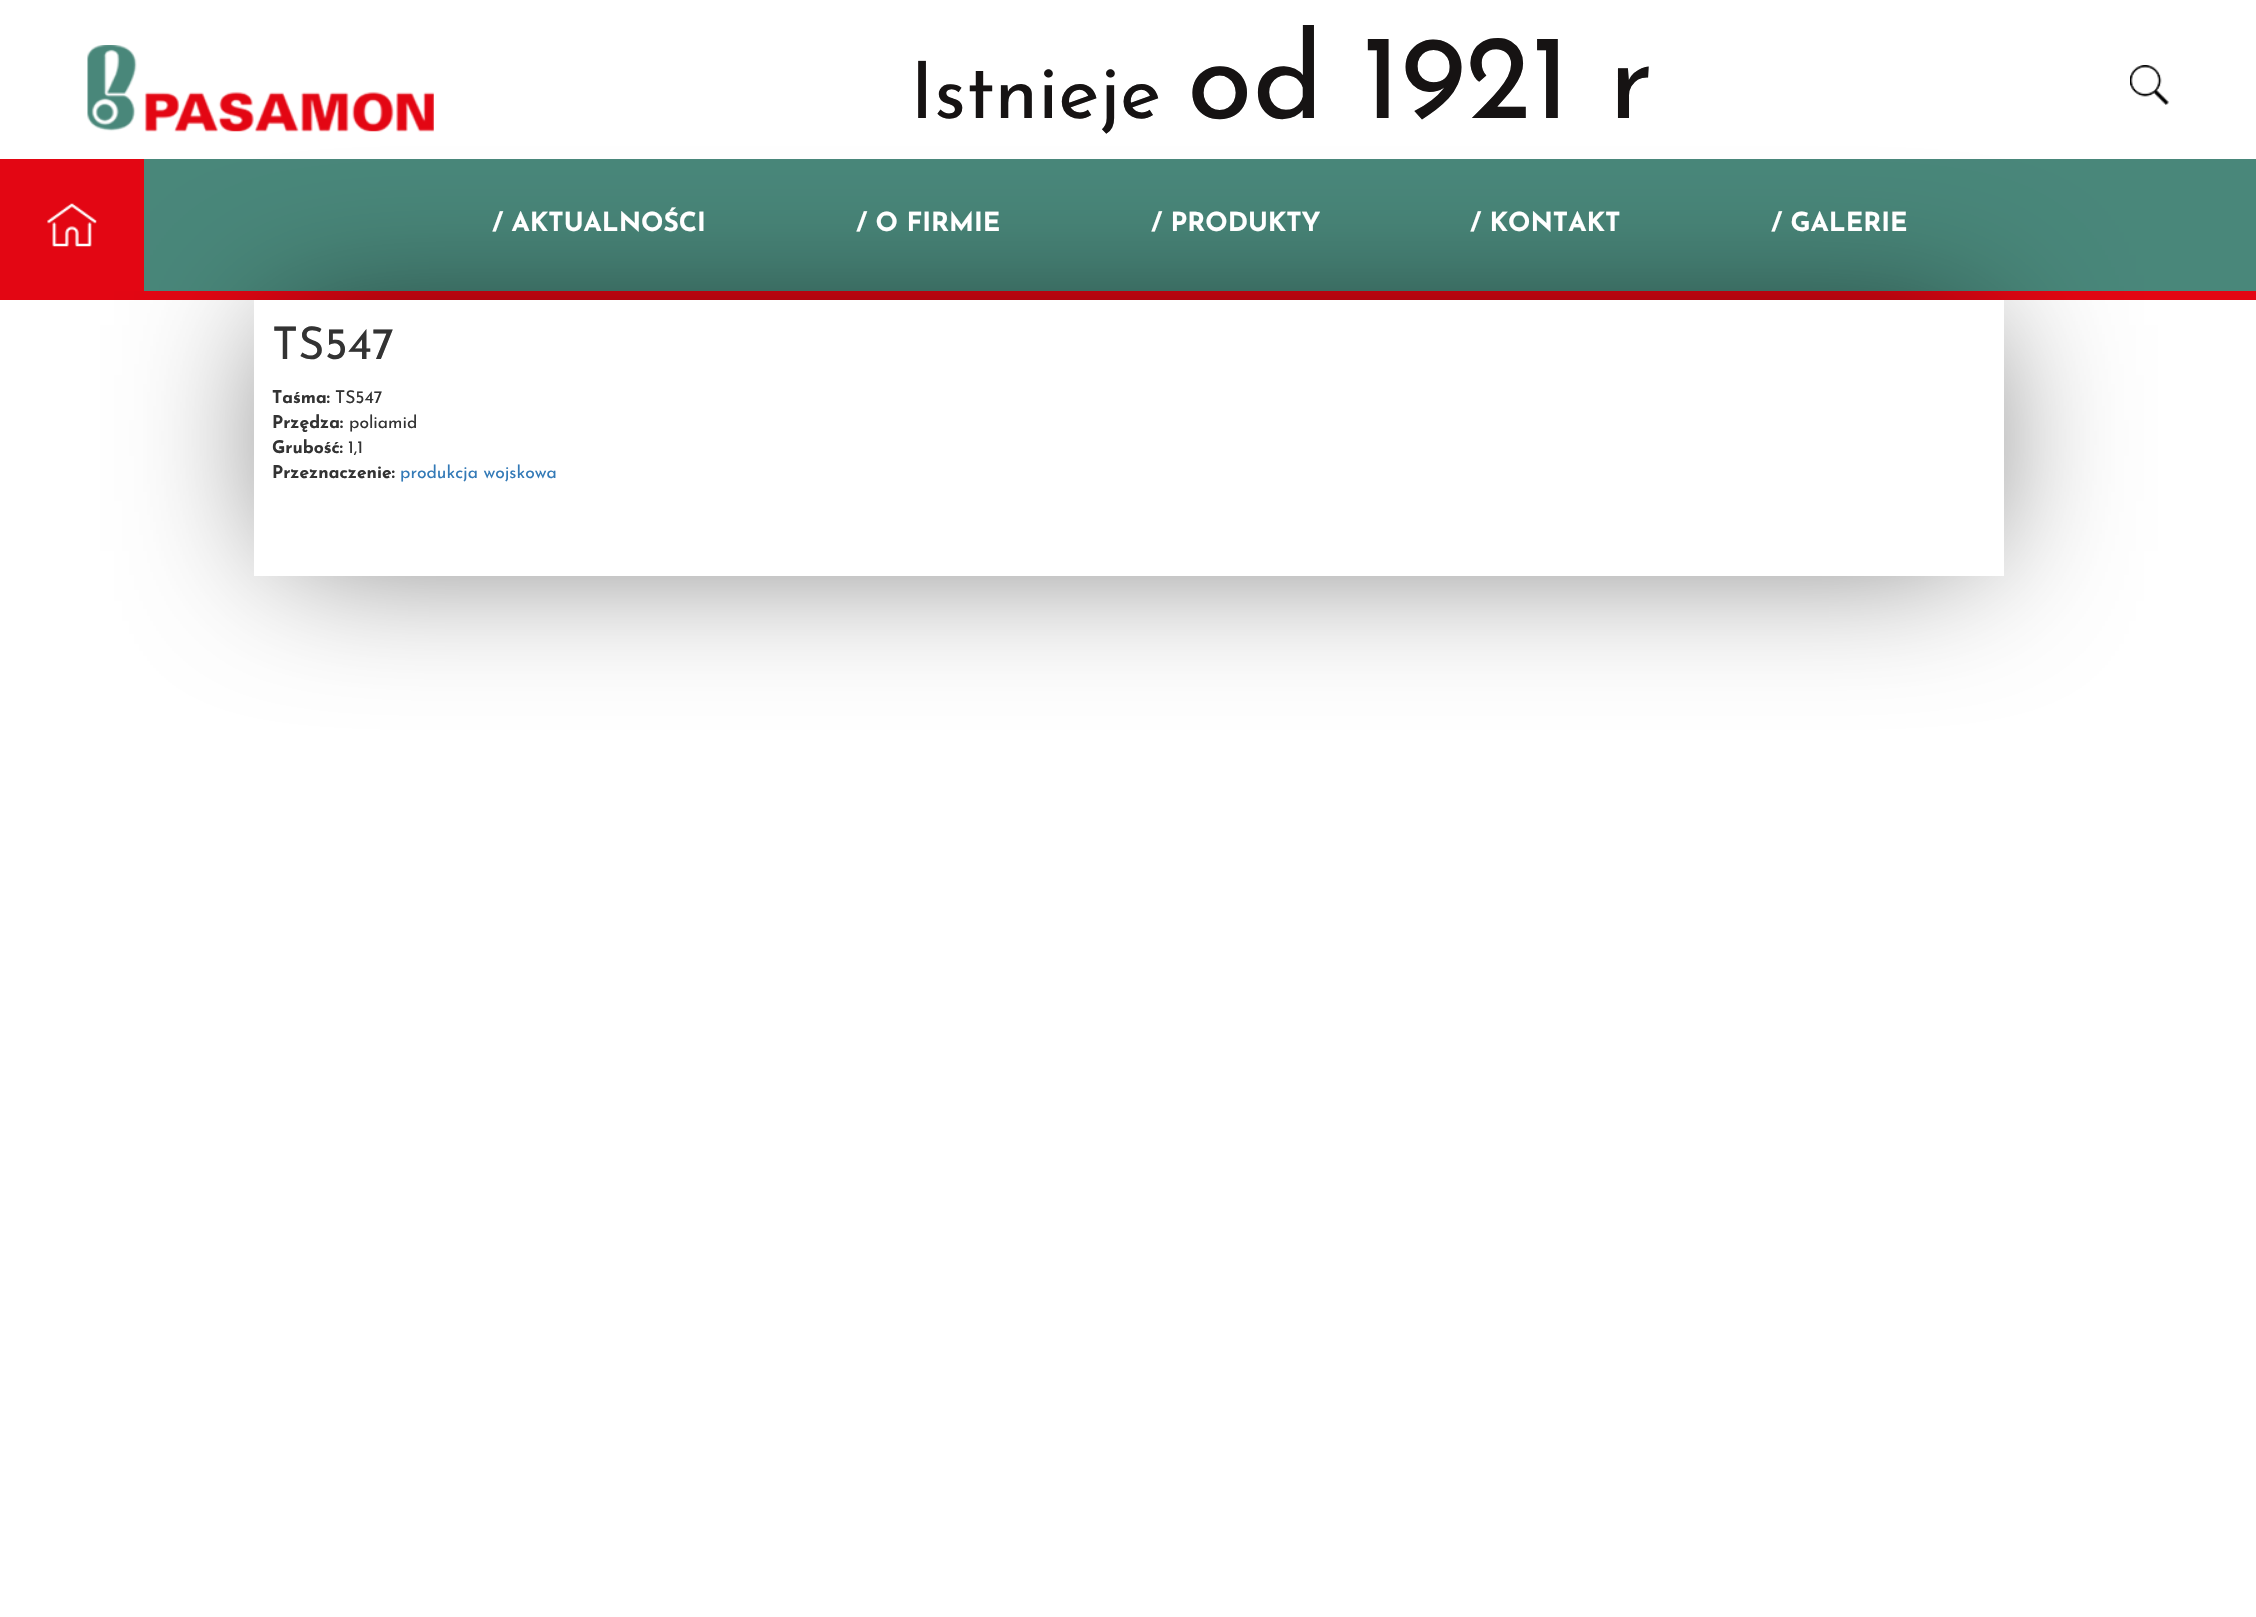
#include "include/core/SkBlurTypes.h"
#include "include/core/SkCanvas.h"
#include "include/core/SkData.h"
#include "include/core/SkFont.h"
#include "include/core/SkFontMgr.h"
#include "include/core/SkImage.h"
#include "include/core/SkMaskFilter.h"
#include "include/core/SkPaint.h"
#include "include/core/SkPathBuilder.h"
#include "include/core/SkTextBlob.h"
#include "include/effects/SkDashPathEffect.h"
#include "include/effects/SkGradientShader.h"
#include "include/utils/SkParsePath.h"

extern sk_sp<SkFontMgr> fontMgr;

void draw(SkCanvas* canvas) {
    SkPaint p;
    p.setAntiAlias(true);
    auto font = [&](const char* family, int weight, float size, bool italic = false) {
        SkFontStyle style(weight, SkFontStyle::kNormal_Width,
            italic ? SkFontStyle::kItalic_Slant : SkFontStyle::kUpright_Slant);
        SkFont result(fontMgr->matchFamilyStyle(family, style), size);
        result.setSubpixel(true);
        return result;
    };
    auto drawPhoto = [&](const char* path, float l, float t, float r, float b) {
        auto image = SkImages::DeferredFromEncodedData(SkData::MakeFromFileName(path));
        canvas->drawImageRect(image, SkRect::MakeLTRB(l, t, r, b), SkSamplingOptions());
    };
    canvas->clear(0xFFFFFFFF);
    p.setColor(0xFF49877A);
    canvas->drawRect(SkRect::MakeLTRB(144, 159, 2256, 291), p);
    p.setColor(0xFFE30613);
    canvas->drawRect(SkRect::MakeLTRB(0, 291, 2256, 300), p);
    canvas->save();
    canvas->clipPath(SkPathBuilder(SkPathFillType::kEvenOdd).moveTo(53, 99).lineTo(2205, 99).lineTo(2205, 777).lineTo(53, 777).close().moveTo(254, 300).lineTo(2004, 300).lineTo(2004, 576).lineTo(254, 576).close().detach(), true);
    p.setColor(0x99000000);
    p.setMaskFilter(SkMaskFilter::MakeBlur(kNormal_SkBlurStyle, 75));
    canvas->drawRect(SkRect::MakeLTRB(279, 325, 1979, 551), p);
    p.setMaskFilter(nullptr);
    canvas->restore();
    drawPhoto("media/1.png", 87, 45, 434, 132);
    auto font1 = font("Josefin Sans", 400, 79);
    p.setColor(0xFF161313);
    canvas->drawString("Istnieje", 910, 118, font1, p);
    auto font2 = font("Josefin Sans", 400, 120);
    canvas->drawString("od 1921 r", 1187, 118, font2, p);
    drawPhoto("media/2.png", 2130, 65, 2169, 105);
    p.setColor(0xFFE30613);
    canvas->drawRect(SkRect::MakeLTRB(0, 159, 144, 291), p);
    drawPhoto("media/3.png", 47, 203, 97, 247);
    auto font3 = font("Josefin Sans", 700, 26.25f);
    p.setColor(0xFFFFFFFF);
    {
        const struct { const char* s; float x, y; } items[] = {
            {"/ AKTUALNOŚCI", 492, 231},
            {"/ O FIRMIE", 856, 231},
            {"/ PRODUKTY", 1151, 231},
            {"/ KONTAKT", 1470, 231},
            {"/ GALERIE", 1771, 231},
        };
        for (auto [s, x, y] : items) {
            canvas->drawString(s, x, y, font3, p);
        }
    }
    auto font4 = font("Josefin Sans", 400, 45);
    p.setColor(0xFF333333);
    canvas->drawString("TS547", 272, 359, font4, p);
    auto font5 = font("Josefin Sans", 700, 17.5f);
    canvas->drawString("Taśma:", 272, 403, font5, p);
    auto font6 = font("Josefin Sans", 400, 17.5f);
    canvas->drawString("TS547", 335, 403, font6, p);
    canvas->drawString("Przędza:", 272, 428, font5, p);
    canvas->drawString("poliamid", 349, 428, font6, p);
    canvas->drawString("Grubość:", 272, 453, font5, p);
    canvas->drawString("1,1", 348, 453, font6, p);
    canvas->drawString("Przeznaczenie:", 272, 478, font5, p);
    p.setColor(0xFF337AB7);
    canvas->drawString("produkcja wojskowa", 400, 478, font6, p);
}
